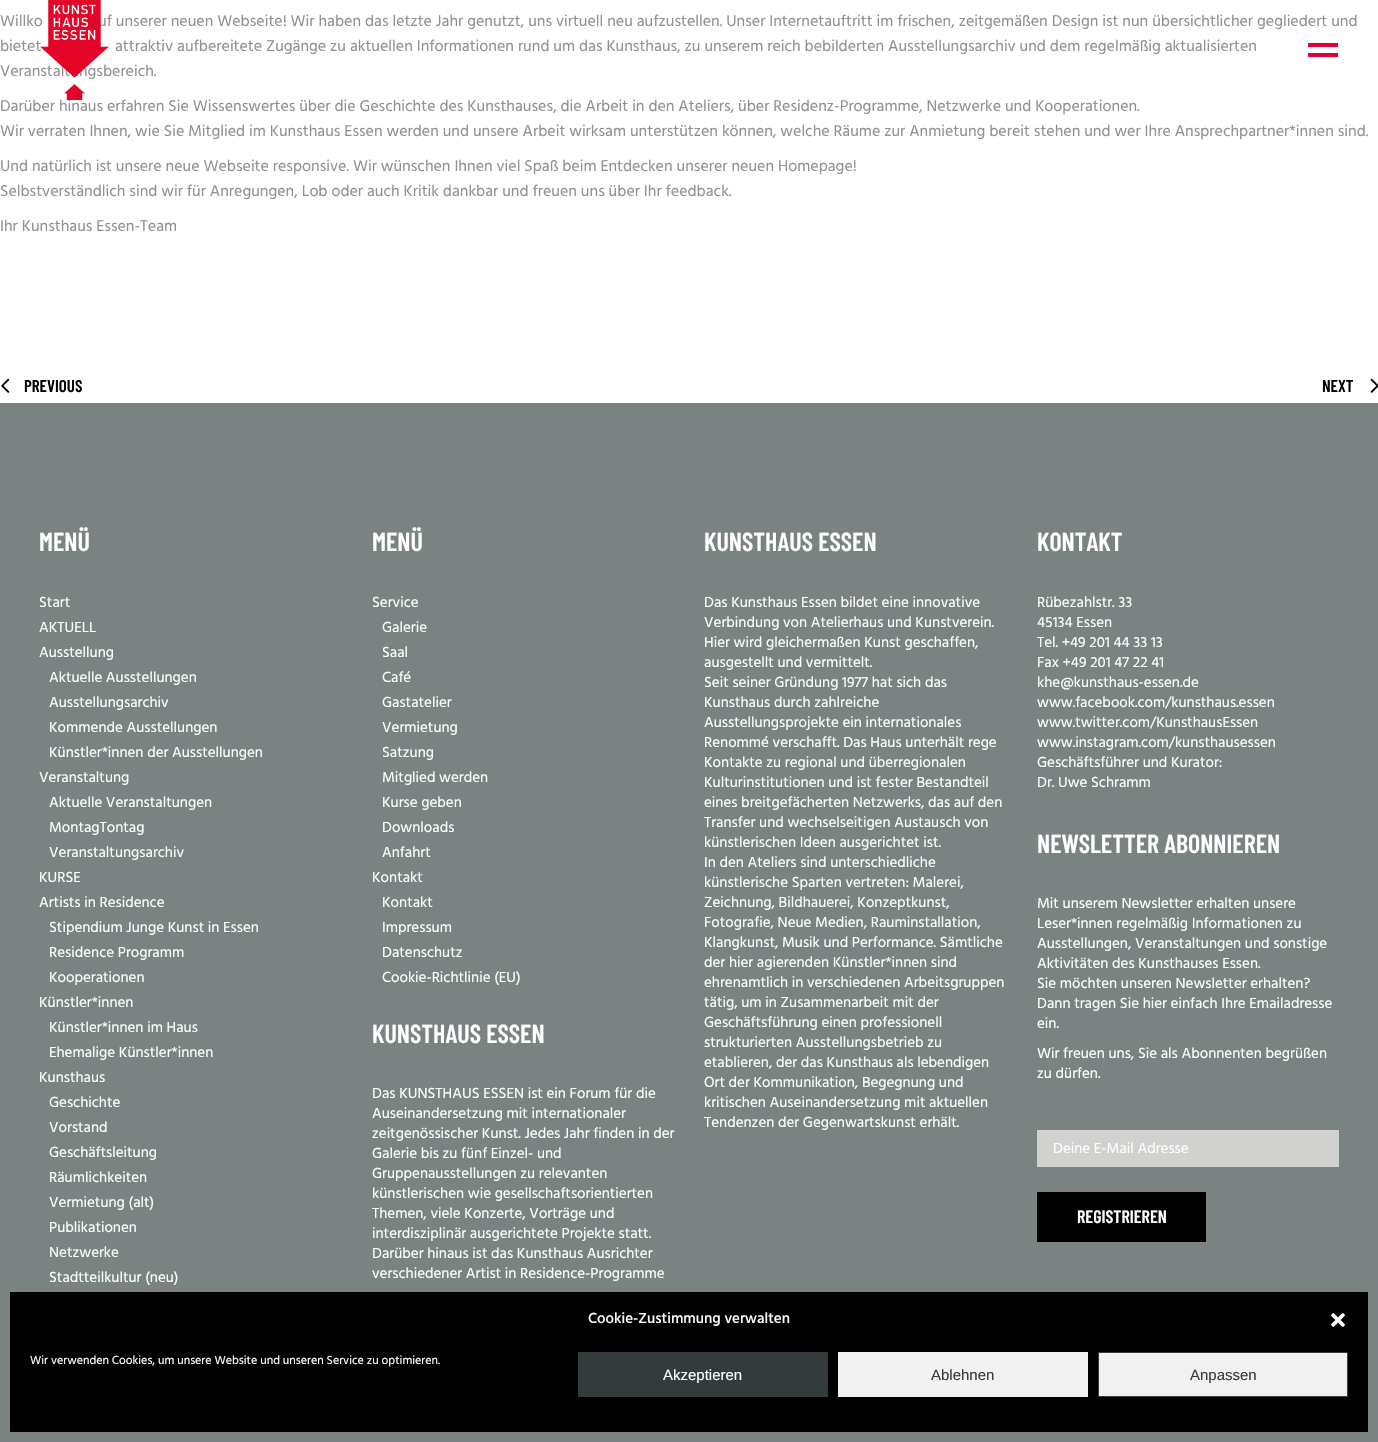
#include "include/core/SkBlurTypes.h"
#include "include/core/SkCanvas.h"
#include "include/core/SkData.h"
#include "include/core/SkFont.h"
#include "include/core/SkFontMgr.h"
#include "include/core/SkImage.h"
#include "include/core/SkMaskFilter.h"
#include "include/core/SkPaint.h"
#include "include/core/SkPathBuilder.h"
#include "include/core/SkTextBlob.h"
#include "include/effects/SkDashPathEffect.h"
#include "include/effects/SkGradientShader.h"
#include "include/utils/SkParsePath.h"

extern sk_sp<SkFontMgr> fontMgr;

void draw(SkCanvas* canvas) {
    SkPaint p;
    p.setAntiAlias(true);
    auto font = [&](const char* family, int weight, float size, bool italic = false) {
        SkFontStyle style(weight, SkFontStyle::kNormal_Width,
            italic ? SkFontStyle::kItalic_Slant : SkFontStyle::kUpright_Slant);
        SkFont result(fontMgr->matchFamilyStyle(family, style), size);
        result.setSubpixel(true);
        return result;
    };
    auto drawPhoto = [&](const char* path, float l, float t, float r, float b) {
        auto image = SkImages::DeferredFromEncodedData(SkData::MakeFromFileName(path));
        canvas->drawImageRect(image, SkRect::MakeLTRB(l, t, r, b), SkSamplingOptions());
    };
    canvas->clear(0xFFFFFFFF);
    auto font1 = font("Hind", 400, 16);
    p.setColor(0xFF909090);
    {
        const struct { const char* s; float x, y; } items[] = {
            {"Willko", 0, 26},
            {"uf unserer neuen Webseite! Wir haben das letzte Jahr genutzt, uns virtuell neu aufzustellen. Unser Internetauftritt im frischen, zeitgemäßen Design ist nun übersichtlicher gegliedert und", 98, 26},
            {"bietet", 0, 51},
            {"Veranstaltungsbereich.", 0, 76},
            {"Darüber hinaus erfahren Sie Wissenswertes über die Geschichte des Kunsthauses, die Arbeit in den Ateliers, über Residenz-Programme, Netzwerke und Kooperationen.", 0, 111},
        };
        for (auto [s, x, y] : items) {
            canvas->drawString(s, x, y, font1, p);
        }
    }
    drawPhoto("media/1.png", 40, 0, 109, 100);
    p.setColor(0xFFDF0035);
    canvas->drawRect(SkRect::MakeLTRB(1308, 43, 1338, 47), p);
    canvas->drawRect(SkRect::MakeLTRB(1308, 53, 1338, 57), p);
    p.setColor(0xFF909090);
    {
        const struct { const char* s; float x, y; } items[] = {
            {"attraktiv aufbereitete Zugänge zu aktuellen Informationen rund um das Kunsthaus, zu unserem reich bebilderten Ausstellungsarchiv und dem regelmäßig aktualisierten", 115, 51},
            {"Wir verraten Ihnen, wie Sie Mitglied im Kunsthaus Essen werden und unsere Arbeit wirksam unterstützen können, welche Räume zur Anmietung bereit stehen und wer Ihre Ansprechpartner*innen sind.", 0, 136},
            {"Und natürlich ist unsere neue Webseite responsive. Wir wünschen Ihnen viel Spaß beim Entdecken unserer neuen Homepage!", 0, 171},
            {"Selbstverständlich sind wir für Anregungen, Lob oder auch Kritik dankbar und freuen uns über Ihr feedback.", 0, 196},
            {"Ihr Kunsthaus Essen-Team", 0, 231},
        };
        for (auto [s, x, y] : items) {
            canvas->drawString(s, x, y, font1, p);
        }
    }
    drawPhoto("media/2.png", 1, 378, 10, 393);
    auto font2 = font("Barlow Condensed", 600, 17);
    p.setColor(0xFF000000);
    canvas->drawString("PREVIOUS", 24, 392, font2, p);
    canvas->drawString("NEXT", 1322, 392, font2, p);
    drawPhoto("media/3.png", 1370, 378, 1378, 393);
    p.setColor(0xFF7B8382);
    canvas->drawRect(SkRect::MakeLTRB(0, 403, 1378, 1442), p);
    auto font3 = font("Barlow Condensed", 600, 26);
    p.setColor(0xFFFFFFFF);
    canvas->drawString("MENÜ", 39, 551, font3, p);
    auto font4 = font("Hind", 400, 15);
    {
        const struct { const char* s; float x, y; } items[] = {
            {"Start", 39, 607},
            {"AKTUELL", 39, 632},
            {"Ausstellung", 39, 657},
            {"Aktuelle Ausstellungen", 49, 682},
            {"Ausstellungsarchiv", 49, 707},
            {"Kommende Ausstellungen", 49, 732},
            {"Künstler*innen der Ausstellungen", 49, 757},
            {"Veranstaltung", 39, 782},
            {"Aktuelle Veranstaltungen", 49, 807},
            {"MontagTontag", 49, 832},
            {"Veranstaltungsarchiv", 49, 857},
            {"KURSE", 39, 882},
            {"Artists in Residence", 39, 907},
            {"Stipendium Junge Kunst in Essen", 49, 932},
            {"Residence Programm", 49, 957},
            {"Kooperationen", 49, 982},
            {"Künstler*innen", 39, 1007},
            {"Künstler*innen im Haus", 49, 1032},
            {"Ehemalige Künstler*innen", 49, 1057},
            {"Kunsthaus", 39, 1082},
            {"Geschichte", 49, 1107},
            {"Vorstand", 49, 1132},
            {"Geschäftsleitung", 49, 1157},
            {"Räumlichkeiten", 49, 1182},
            {"Vermietung (alt)", 49, 1207},
            {"Publikationen", 49, 1232},
            {"Netzwerke", 49, 1257},
            {"Stadtteilkultur (neu)", 49, 1282},
        };
        for (auto [s, x, y] : items) {
            canvas->drawString(s, x, y, font4, p);
        }
    }
    canvas->drawString("MENÜ", 372, 551, font3, p);
    {
        const struct { const char* s; float x, y; } items[] = {
            {"Service", 372, 607},
            {"Galerie", 382, 632},
            {"Saal", 382, 657},
            {"Café", 382, 682},
            {"Gastatelier", 382, 707},
            {"Vermietung", 382, 732},
            {"Satzung", 382, 757},
            {"Mitglied werden", 382, 782},
            {"Kurse geben", 382, 807},
            {"Downloads", 382, 832},
            {"Anfahrt", 382, 857},
            {"Kontakt", 372, 882},
            {"Kontakt", 382, 907},
            {"Impressum", 382, 932},
            {"Datenschutz", 382, 957},
            {"Cookie-Richtlinie (EU)", 382, 982},
        };
        for (auto [s, x, y] : items) {
            canvas->drawString(s, x, y, font4, p);
        }
    }
    canvas->drawString("KUNSTHAUS ESSEN", 372, 1043, font3, p);
    {
        const struct { const char* s; float x, y; } items[] = {
            {"Das KUNSTHAUS ESSEN ist ein Forum für die", 372, 1098},
            {"Auseinandersetzung mit internationaler", 372, 1118},
            {"zeitgenössischer Kunst. Jedes Jahr finden in der", 372, 1138},
            {"Galerie bis zu fünf Einzel- und", 372, 1158},
            {"Gruppenausstellungen zu relevanten", 372, 1178},
            {"künstlerischen wie gesellschaftsorientierten", 372, 1198},
            {"Themen, viele Konzerte, Vorträge und", 372, 1218},
            {"interdisziplinär ausgerichtete Projekte statt.", 372, 1238},
            {"Darüber hinaus ist das Kunsthaus Ausrichter", 372, 1258},
            {"verschiedener Artist in Residence-Programme", 372, 1278},
        };
        for (auto [s, x, y] : items) {
            canvas->drawString(s, x, y, font4, p);
        }
    }
    canvas->drawString("KUNSTHAUS ESSEN", 704, 551, font3, p);
    {
        const struct { const char* s; float x, y; } items[] = {
            {"Das Kunsthaus Essen bildet eine innovative", 704, 607},
            {"Verbindung von Atelierhaus und Kunstverein.", 704, 627},
            {"Hier wird gleichermaßen Kunst geschaffen,", 704, 647},
            {"ausgestellt und vermittelt.", 704, 667},
            {"Seit seiner Gründung 1977 hat sich das", 704, 687},
            {"Kunsthaus durch zahlreiche", 704, 707},
            {"Ausstellungsprojekte ein internationales", 704, 727},
            {"Renommé verschafft. Das Haus unterhält rege", 704, 747},
            {"Kontakte zu regional und überregionalen", 704, 767},
            {"Kulturinstitutionen und ist fester Bestandteil", 704, 787},
            {"eines breitgefächerten Netzwerks, das auf den", 704, 807},
            {"Transfer und wechselseitigen Austausch von", 704, 827},
            {"künstlerischen Ideen ausgerichtet ist.", 704, 847},
            {"In den Ateliers sind unterschiedliche", 704, 867},
            {"künstlerische Sparten vertreten: Malerei,", 704, 887},
            {"Zeichnung, Bildhauerei, Konzeptkunst,", 704, 907},
            {"Fotografie, Neue Medien, Rauminstallation,", 704, 927},
            {"Klangkunst, Musik und Performance. Sämtliche", 704, 947},
            {"der hier agierenden Künstler*innen sind", 704, 967},
            {"ehrenamtlich in verschiedenen Arbeitsgruppen", 704, 987},
            {"tätig, um in Zusammenarbeit mit der", 704, 1007},
            {"Geschäftsführung einen professionell", 704, 1027},
            {"strukturierten Ausstellungsbetrieb zu", 704, 1047},
            {"etablieren, der das Kunsthaus als lebendigen", 704, 1067},
            {"Ort der Kommunikation, Begegnung und", 704, 1087},
            {"kritischen Auseinandersetzung mit aktuellen", 704, 1107},
            {"Tendenzen der Gegenwartskunst erhält.", 704, 1127},
        };
        for (auto [s, x, y] : items) {
            canvas->drawString(s, x, y, font4, p);
        }
    }
    canvas->drawString("KONTAKT", 1037, 551, font3, p);
    {
        const struct { const char* s; float x, y; } items[] = {
            {"Rübezahlstr. 33", 1037, 607},
            {"45134 Essen", 1037, 627},
            {"Tel. +49 201 44 33 13", 1037, 647},
            {"Fax +49 201 47 22 41", 1037, 667},
            {"khe@kunsthaus-essen.de", 1037, 687},
            {"www.facebook.com/kunsthaus.essen", 1037, 707},
            {"www.twitter.com/KunsthausEssen", 1037, 727},
            {"www.instagram.com/kunsthausessen", 1037, 747},
            {"Geschäftsführer und Kurator:", 1037, 767},
            {"Dr. Uwe Schramm", 1037, 787},
        };
        for (auto [s, x, y] : items) {
            canvas->drawString(s, x, y, font4, p);
        }
    }
    canvas->drawString("NEWSLETTER ABONNIEREN", 1037, 853, font3, p);
    {
        const struct { const char* s; float x, y; } items[] = {
            {"Mit unserem Newsletter erhalten unsere", 1037, 908},
            {"Leser*innen regelmäßig Informationen zu", 1037, 928},
            {"Ausstellungen, Veranstaltungen und sonstige", 1037, 948},
            {"Aktivitäten des Kunsthauses Essen.", 1037, 968},
            {"Sie möchten unseren Newsletter erhalten?", 1037, 988},
            {"Dann tragen Sie hier einfach Ihre Emailadresse", 1037, 1008},
            {"ein.", 1037, 1028},
            {"Wir freuen uns, Sie als Abonnenten begrüßen", 1037, 1058},
            {"zu dürfen.", 1037, 1078},
        };
        for (auto [s, x, y] : items) {
            canvas->drawString(s, x, y, font4, p);
        }
    }
    p.setColor(0xFFD1D2CF);
    canvas->drawRect(SkRect::MakeLTRB(1037, 1130, 1339, 1167), p);
    p.setColor(0xFFFFFFFF);
    canvas->drawString("Deine E-Mail Adresse", 1053, 1153, font4, p);
    p.setColor(0xFF000000);
    canvas->drawRect(SkRect::MakeLTRB(1037, 1192, 1206, 1242), p);
    auto font5 = font("Barlow Condensed", 600, 18);
    p.setColor(0xFFFFFFFF);
    canvas->drawString("REGISTRIEREN", 1077, 1223, font5, p);
    p.setColor(0xFF000000);
    canvas->drawRect(SkRect::MakeLTRB(10, 1292, 1368, 1432), p);
    auto font6 = font("Hind", 500, 15);
    p.setColor(0xFFFFFFFF);
    canvas->drawString("Cookie-Zustimmung verwalten", 588, 1323, font6, p);
    drawPhoto("media/4.png", 1331, 1313, 1345, 1327);
    auto font7 = font("Hind", 400, 12);
    canvas->drawString("Wir verwenden Cookies, um unsere Website und unseren Service zu optimieren.", 30, 1364, font7, p);
    p.setColor(0xFF333B3D);
    canvas->drawRect(SkRect::MakeLTRB(578, 1352, 828, 1397), p);
    auto font8 = font("Liberation Sans", 400, 15);
    p.setColor(0xFFFFFFFF);
    canvas->drawString("Akzeptieren", 663, 1380, font8, p);
    p.setColor(0xFFF1F1F1);
    canvas->drawRect(SkRect::MakeLTRB(838, 1352, 1088, 1397), p);
    p.setColor(0xFF333B3D);
    canvas->drawString("Ablehnen", 931, 1380, font8, p);
    p.setColor(0xFFF1F1F1);
    canvas->drawRect(SkRect::MakeLTRB(1098.5f, 1352.5f, 1347.5f, 1396.5f), p);
    p.setStyle(SkPaint::kStroke_Style);
    p.setStrokeWidth(1);
    p.setColor(0xFF333B3D);
    canvas->drawRect(SkRect::MakeLTRB(1098.5f, 1352.5f, 1347.5f, 1396.5f), p);
    p.setStyle(SkPaint::kFill_Style);
    canvas->drawString("Anpassen", 1190, 1380, font8, p);
}
